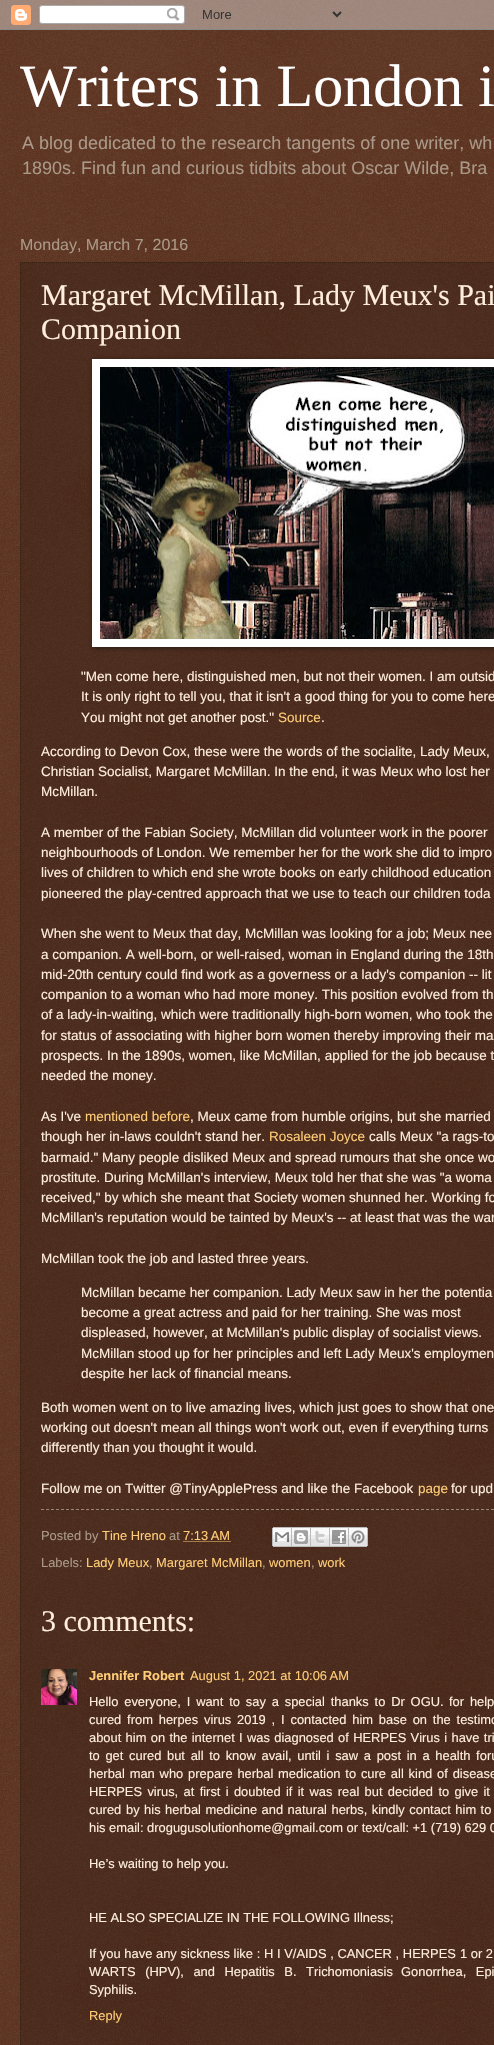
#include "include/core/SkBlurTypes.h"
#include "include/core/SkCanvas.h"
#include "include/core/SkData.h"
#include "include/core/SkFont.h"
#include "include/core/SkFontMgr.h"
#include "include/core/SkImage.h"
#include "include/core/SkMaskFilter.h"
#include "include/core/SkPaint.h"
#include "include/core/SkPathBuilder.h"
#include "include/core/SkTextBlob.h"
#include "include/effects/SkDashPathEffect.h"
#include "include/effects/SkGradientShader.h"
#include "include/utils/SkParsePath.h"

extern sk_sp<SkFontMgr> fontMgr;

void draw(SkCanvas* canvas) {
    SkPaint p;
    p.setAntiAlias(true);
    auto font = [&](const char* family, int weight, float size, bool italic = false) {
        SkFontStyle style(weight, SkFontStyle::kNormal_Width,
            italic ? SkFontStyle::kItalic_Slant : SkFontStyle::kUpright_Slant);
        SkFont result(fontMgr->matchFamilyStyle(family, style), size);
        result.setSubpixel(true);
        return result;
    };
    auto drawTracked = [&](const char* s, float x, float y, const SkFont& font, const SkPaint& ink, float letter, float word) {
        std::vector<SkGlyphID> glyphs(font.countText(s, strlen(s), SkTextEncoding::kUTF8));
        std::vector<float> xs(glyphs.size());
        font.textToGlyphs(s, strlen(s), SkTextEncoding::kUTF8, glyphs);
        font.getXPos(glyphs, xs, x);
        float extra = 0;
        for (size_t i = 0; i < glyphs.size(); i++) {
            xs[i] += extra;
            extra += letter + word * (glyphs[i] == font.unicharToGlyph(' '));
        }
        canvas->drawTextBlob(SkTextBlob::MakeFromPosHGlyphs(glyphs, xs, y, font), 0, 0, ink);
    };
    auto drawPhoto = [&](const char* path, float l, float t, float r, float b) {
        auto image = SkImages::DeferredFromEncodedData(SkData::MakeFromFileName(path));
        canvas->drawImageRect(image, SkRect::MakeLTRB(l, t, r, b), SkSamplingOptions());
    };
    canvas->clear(0xFF441500);
    drawPhoto("media/1.png", 0, 0, 494, 2045);
    drawPhoto("media/2.png", 0, 0, 494, 30);
    auto font1 = font("Liberation Serif", 400, 60);
    p.setColor(0xFFFFFFFF);
    canvas->drawString("Writers in London i", 20, 106, font1, p);
    auto font2 = font("Liberation Sans", 400, 18);
    p.setColor(0xFFAA9988);
    canvas->drawString("A blog dedicated to the research tangents of one writer, wh", 22, 149, font2, p);
    canvas->drawString("1890s. Find fun and curious tidbits about Oscar Wilde, Bra", 22, 174, font2, p);
    auto font3 = font("Liberation Sans", 400, 16);
    canvas->drawString("Monday, March 7, 2016", 20, 250, font3, p);
    p.setColor(0x33000000);
    canvas->drawRect(SkRect::MakeLTRB(20, 262, 494, 2045), p);
    p.setStyle(SkPaint::kStroke_Style);
    p.setStrokeWidth(1);
    p.setColor(0xFF332211);
    p.setPathEffect(SkDashPathEffect::Make({{1, 1}}, 0));
    canvas->drawPath(SkPathBuilder().moveTo(20, 262.5f).lineTo(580, 262.5f).detach(), p);
    p.setPathEffect(nullptr);
    p.setPathEffect(SkDashPathEffect::Make({{1, 1}}, 0));
    canvas->drawPath(SkPathBuilder().moveTo(20.5f, 262).lineTo(20.5f, 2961).detach(), p);
    p.setPathEffect(nullptr);
    auto font4 = font("Liberation Serif", 400, 30);
    p.setStyle(SkPaint::kFill_Style);
    p.setColor(0xFFFFEEDD);
    canvas->drawString("Margaret McMillan, Lady Meux's Pai", 41, 305, font4, p);
    canvas->drawString("Companion", 41, 339, font4, p);
    p.setColor(0x80000000);
    p.setMaskFilter(SkMaskFilter::MakeBlur(kNormal_SkBlurStyle, 2.5f));
    canvas->drawRect(SkRect::MakeLTRB(93, 360, 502, 648), p);
    p.setMaskFilter(nullptr);
    p.setColor(0xFFFFFFFF);
    canvas->drawRect(SkRect::MakeLTRB(92, 359, 494, 647), p);
    drawPhoto("media/3.png", 100, 367, 494, 639);
    auto font5 = font("Liberation Sans", 400, 13.5f);
    p.setColor(0xFFFFEEDD);
    {
        const struct { const char* s; float x, y; } items[] = {
            {"\"Men come here, distinguished men, but not their women. I am outsid", 81, 681},
            {"It is only right to tell you, that it isn't a good thing for you to come here", 81, 701},
            {"You might not get another post.\"", 81, 722},
        };
        for (auto [s, x, y] : items) {
            canvas->drawString(s, x, y, font5, p);
        }
    }
    p.setColor(0xFFFFCC77);
    canvas->drawString("Source", 278, 722, font5, p);
    p.setColor(0xFFFFEEDD);
    {
        const struct { const char* s; float x, y; } items[] = {
            {".", 321, 722},
            {"According to Devon Cox, these were the words of the socialite, Lady Meux,", 41, 756},
            {"Christian Socialist, Margaret McMillan. In the end, it was Meux who lost her", 41, 776},
            {"McMillan.", 41, 796},
            {"A member of the Fabian Society, McMillan did volunteer work in the poorer", 41, 837},
            {"neighbourhoods of London. We remember her for the work she did to impro", 41, 857},
            {"lives of children to which end she wrote books on early childhood education", 41, 877},
            {"pioneered the play-centred approach that we use to teach our children toda", 41, 898},
            {"When she went to Meux that day, McMillan was looking for a job; Meux nee", 41, 938},
            {"a companion. A well-born, or well-raised, woman in England during the 18th", 41, 959},
            {"mid-20th century could find work as a governess or a lady's companion -- lit", 41, 979},
            {"companion to a woman who had more money. This position evolved from th", 41, 999},
            {"of a lady-in-waiting, which were traditionally high-born women, who took the", 41, 1019},
            {"for status of associating with higher born women thereby improving their ma", 41, 1040},
            {"prospects. In the 1890s, women, like McMillan, applied for the job because t", 41, 1060},
            {"needed the money.", 41, 1080},
            {"As I've", 41, 1121},
        };
        for (auto [s, x, y] : items) {
            canvas->drawString(s, x, y, font5, p);
        }
    }
    p.setColor(0xFFFFCC77);
    canvas->drawString("mentioned before", 85, 1121, font5, p);
    p.setColor(0xFFFFEEDD);
    canvas->drawString(", Meux came from humble origins, but she married", 190, 1121, font5, p);
    canvas->drawString("though her in-laws couldn't stand her.", 41, 1141, font5, p);
    p.setColor(0xFFFFCC77);
    canvas->drawString("Rosaleen Joyce", 269, 1141, font5, p);
    p.setColor(0xFFFFEEDD);
    {
        const struct { const char* s; float x, y; } items[] = {
            {"calls Meux \"a rags-to", 369, 1141},
            {"barmaid.\" Many people disliked Meux and spread rumours that she once wo", 41, 1162},
            {"prostitute. During McMillan's interview, Meux told her that she was \"a woma", 41, 1182},
            {"received,\" by which she meant that Society women shunned her. Working fo", 41, 1202},
            {"McMillan's reputation would be tainted by Meux's -- at least that was the war", 41, 1222},
            {"McMillan took the job and lasted three years.", 41, 1263},
            {"McMillan became her companion. Lady Meux saw in her the potentia", 81, 1297},
            {"become a great actress and paid for her training. She was most", 81, 1317},
            {"displeased, however, at McMillan's public display of socialist views.", 81, 1337},
            {"McMillan stood up for her principles and left Lady Meux's employmen", 81, 1358},
            {"despite her lack of financial means.", 81, 1378},
            {"Both women went on to live amazing lives, which just goes to show that one", 41, 1412},
            {"working out doesn't mean all things won't work out, even if everything turns", 41, 1432},
            {"differently than you thought it would.", 41, 1452},
            {"Follow me on Twitter @TinyApplePress and like the Facebook", 41, 1493},
        };
        for (auto [s, x, y] : items) {
            canvas->drawString(s, x, y, font5, p);
        }
    }
    p.setColor(0xFFFFCC77);
    canvas->drawString("page", 418, 1493, font5, p);
    p.setColor(0xFFFFEEDD);
    canvas->drawString("for upd", 451, 1493, font5, p);
    p.setStyle(SkPaint::kStroke_Style);
    p.setColor(0xFF998877);
    p.setPathEffect(SkDashPathEffect::Make({{3, 2}}, 0));
    canvas->drawPath(SkPathBuilder().moveTo(41, 1509.5f).lineTo(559, 1509.5f).detach(), p);
    p.setPathEffect(nullptr);
    auto font6 = font("Liberation Sans", 400, 12.9f);
    p.setStyle(SkPaint::kFill_Style);
    p.setColor(0xFFAA9988);
    canvas->drawString("Posted by", 41, 1540, font6, p);
    p.setColor(0xFFFFCC77);
    canvas->drawString("Tine Hreno", 102, 1540, font6, p);
    p.setColor(0xFFAA9988);
    canvas->drawString("at", 169, 1540, font6, p);
    p.setColor(0xFFFFCC77);
    canvas->drawString("7:13 AM", 183, 1540, font6, p);
    p.setStyle(SkPaint::kStroke_Style);
    p.setPathEffect(SkDashPathEffect::Make({{1, 1}}, 0));
    canvas->drawPath(SkPathBuilder().moveTo(183.5f, 1541.5f).lineTo(230.5f, 1541.5f).detach(), p);
    p.setPathEffect(nullptr);
    drawPhoto("media/4.png", 272, 1527, 292, 1547);
    drawPhoto("media/5.png", 292, 1527, 311, 1547);
    drawPhoto("media/6.png", 311, 1527, 330, 1547);
    drawPhoto("media/7.png", 330, 1527, 349, 1547);
    drawPhoto("media/8.png", 349, 1527, 368, 1547);
    p.setStyle(SkPaint::kFill_Style);
    p.setColor(0xFFAA9988);
    canvas->drawString("Labels:", 41, 1567, font6, p);
    p.setColor(0xFFFFCC77);
    canvas->drawString("Lady Meux", 86, 1567, font6, p);
    p.setColor(0xFFAA9988);
    canvas->drawString(",", 149, 1567, font6, p);
    p.setColor(0xFFFFCC77);
    canvas->drawString("Margaret McMillan", 156, 1567, font6, p);
    p.setColor(0xFFAA9988);
    canvas->drawString(",", 262, 1567, font6, p);
    p.setColor(0xFFFFCC77);
    canvas->drawString("women", 269, 1567, font6, p);
    p.setColor(0xFFAA9988);
    canvas->drawString(",", 311, 1567, font6, p);
    p.setColor(0xFFFFCC77);
    canvas->drawString("work", 318, 1567, font6, p);
    p.setColor(0xFFFFEEDD);
    canvas->drawString("3 comments:", 41, 1631, font4, p);
    drawPhoto("media/9.png", 41, 1669, 77, 1705);
    auto font7 = font("Liberation Sans", 700, 12.9f);
    p.setColor(0xFFFFCC77);
    canvas->drawString("Jennifer Robert", 89, 1680, font7, p);
    canvas->drawString("August 1, 2021 at 10:06 AM", 190, 1680, font6, p);
    p.setColor(0xFFFFEEDD);
    {
        const struct { const char* s; float x, y; } items[] = {
            {"Hello everyone, I want to say a special thanks to Dr OGU.", 89, 1706},
            {"for help", 449, 1706},
            {"cured from herpes virus 2019 , I contacted him base on the testimo", 89, 1724},
        };
        for (auto [s, x, y] : items) {
            drawTracked(s, x, y, font6, p, 0, 2.25f);
        }
    }
    drawTracked("about him on the internet I was diagnosed of HERPES Virus i have tri", 89, 1742, font6, p, 0, 0.75f);
    drawTracked("to get cured but all to know avail, until i saw a post in a health foru", 89, 1760, font6, p, 0, 2.1f);
    drawTracked("herbal man who prepare herbal medication to cure all kind of disease", 89, 1778, font6, p, 0, 1.25f);
    drawTracked("HERPES virus, at first i doubted if it was real but decided to give it", 89, 1796, font6, p, 0, 1.75f);
    canvas->drawString("cured", 89, 1814, font6, p);
    drawTracked("by his herbal medicine and natural herbs, kindly contact him to", 126, 1814, font6, p, 0, 0.9f);
    {
        const struct { const char* s; float x, y; } items[] = {
            {"his email: drogugusolutionhome@gmail.com or text/call: +1 (719) 629 0", 89, 1832},
            {"He’s waiting to help you.", 89, 1868},
            {"HE ALSO SPECIALIZE IN THE FOLLOWING Illness;", 89, 1922},
        };
        for (auto [s, x, y] : items) {
            canvas->drawString(s, x, y, font6, p);
        }
    }
    drawTracked("If you have any sickness like : H I V/AIDS , CANCER , HERPES", 89, 1958, font6, p, 0, 0.1f);
    canvas->drawString("1 or 2", 460, 1958, font6, p);
    drawTracked("WARTS (HPV), and Hepatitis B. Trichomoniasis", 89, 1976, font6, p, 0, 6);
    drawTracked("Gonorrhea, Epi", 401, 1976, font6, p, 0, 6);
    canvas->drawString("Syphilis.", 89, 1994, font6, p);
    p.setColor(0xFFFFCC77);
    canvas->drawString("Reply", 89, 2020, font6, p);
}
